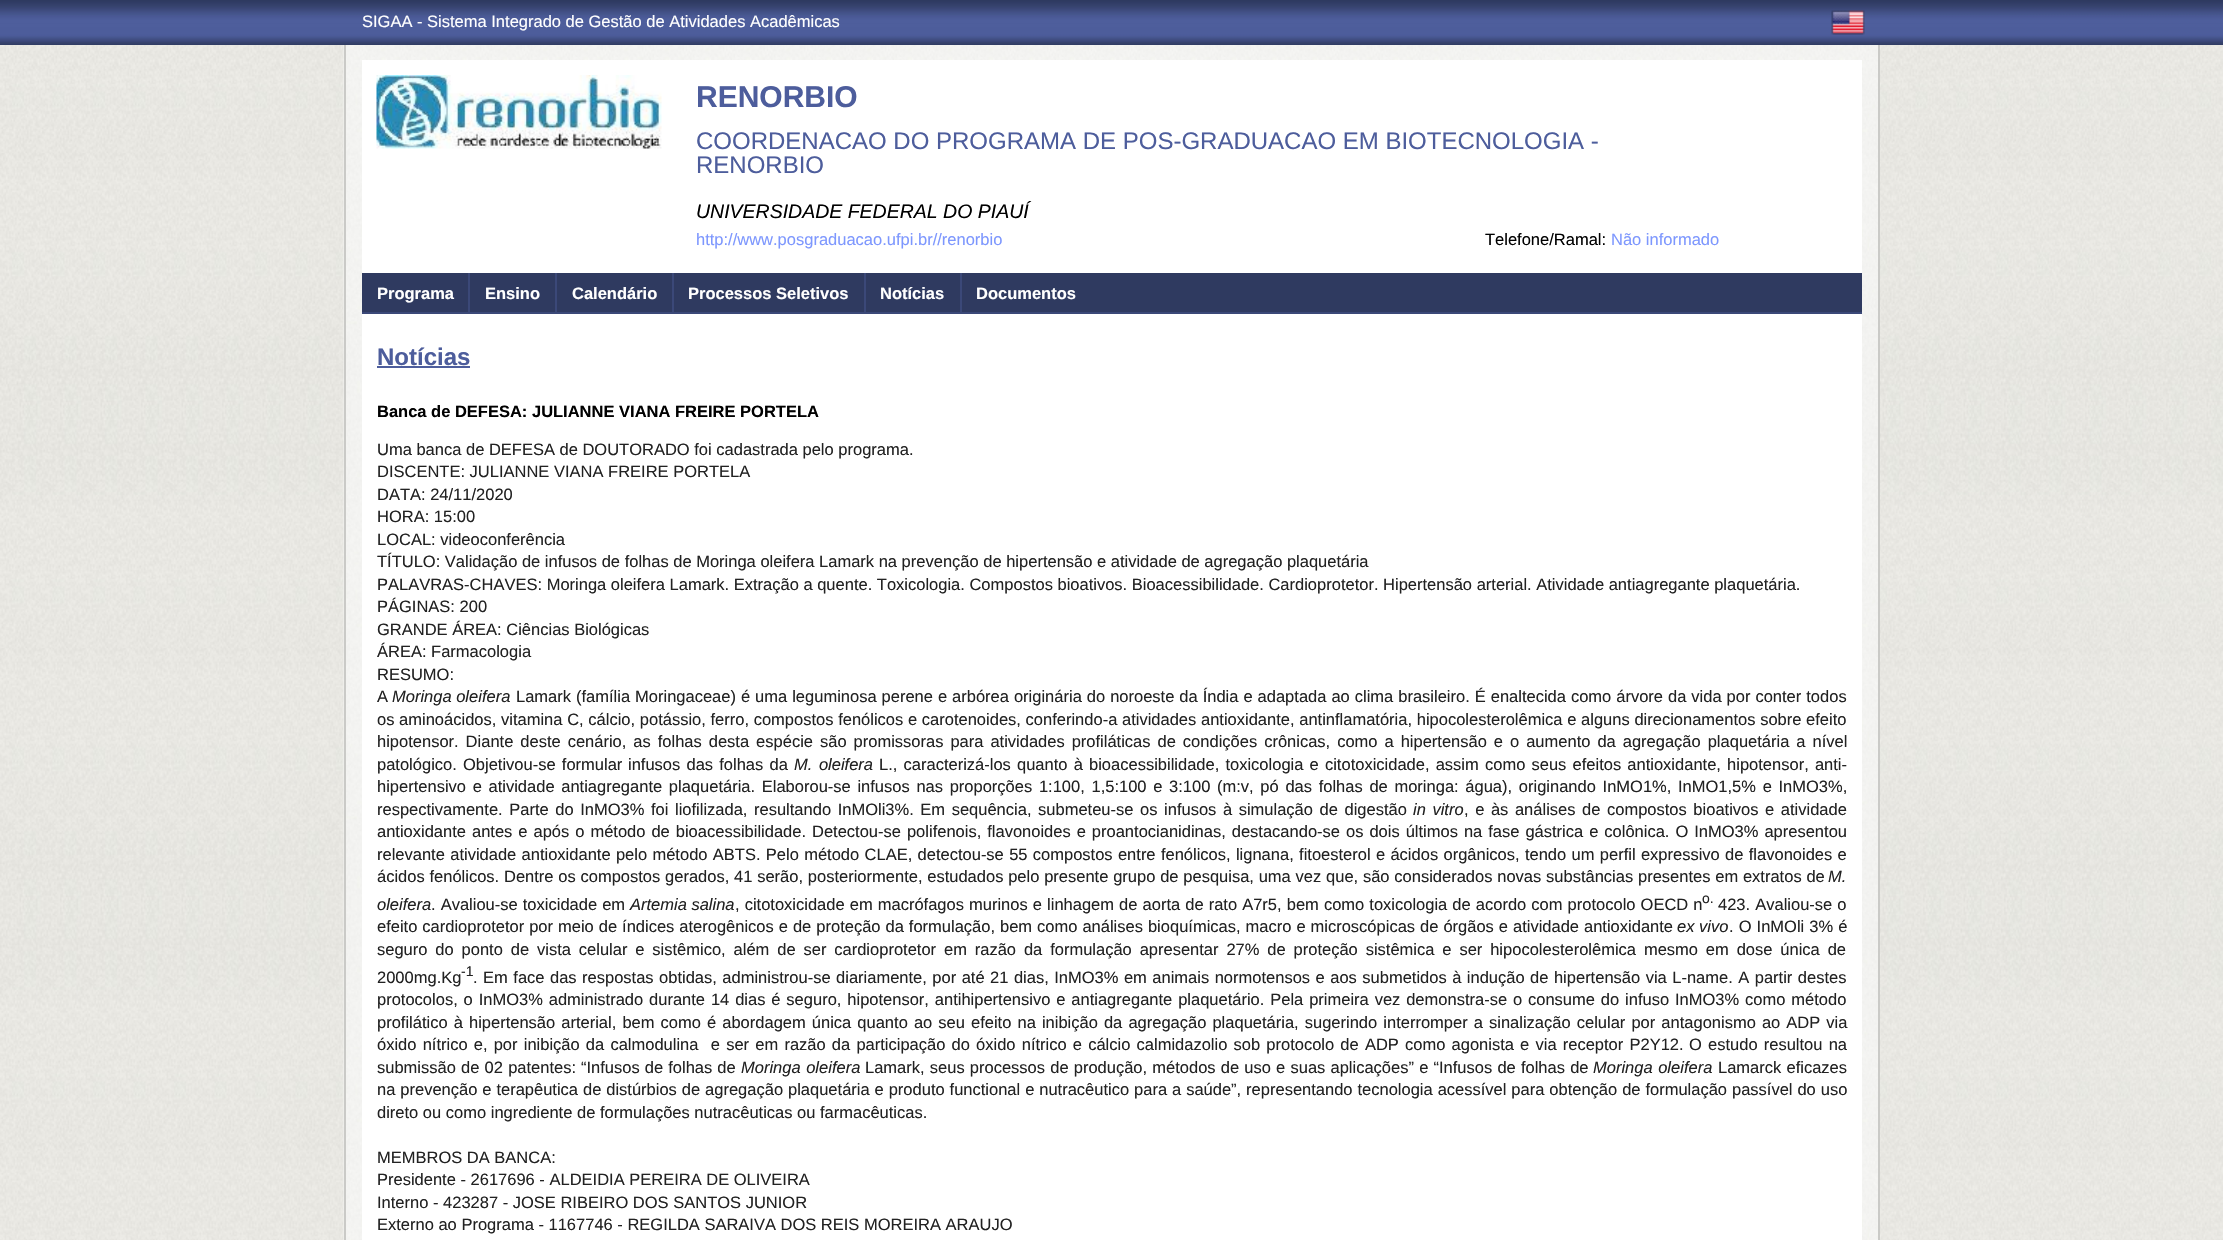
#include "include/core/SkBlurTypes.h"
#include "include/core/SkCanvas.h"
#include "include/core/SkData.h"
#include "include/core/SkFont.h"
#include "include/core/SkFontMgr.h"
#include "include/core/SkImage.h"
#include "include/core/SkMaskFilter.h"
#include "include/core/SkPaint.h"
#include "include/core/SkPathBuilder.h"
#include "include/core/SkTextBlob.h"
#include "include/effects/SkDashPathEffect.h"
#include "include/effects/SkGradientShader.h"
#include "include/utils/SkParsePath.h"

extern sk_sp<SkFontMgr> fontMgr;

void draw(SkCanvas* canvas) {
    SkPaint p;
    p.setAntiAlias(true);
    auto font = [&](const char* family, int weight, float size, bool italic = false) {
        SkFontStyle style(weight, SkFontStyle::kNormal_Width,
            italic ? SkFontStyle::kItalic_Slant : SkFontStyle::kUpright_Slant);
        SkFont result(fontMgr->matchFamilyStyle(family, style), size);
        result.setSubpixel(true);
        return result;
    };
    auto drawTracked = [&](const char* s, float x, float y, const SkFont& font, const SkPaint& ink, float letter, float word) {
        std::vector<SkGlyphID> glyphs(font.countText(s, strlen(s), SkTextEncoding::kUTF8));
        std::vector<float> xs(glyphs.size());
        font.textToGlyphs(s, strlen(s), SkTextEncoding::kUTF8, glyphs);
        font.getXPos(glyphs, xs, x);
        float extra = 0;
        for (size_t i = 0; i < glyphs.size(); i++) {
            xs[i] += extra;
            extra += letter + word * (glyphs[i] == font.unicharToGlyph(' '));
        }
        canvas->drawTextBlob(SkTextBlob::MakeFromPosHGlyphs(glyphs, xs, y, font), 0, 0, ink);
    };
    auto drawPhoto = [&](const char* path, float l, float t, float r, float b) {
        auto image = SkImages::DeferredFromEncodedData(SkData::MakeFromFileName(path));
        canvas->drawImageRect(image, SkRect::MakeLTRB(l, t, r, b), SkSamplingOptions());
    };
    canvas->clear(0xFFFFFFFF);
    drawPhoto("media/1.png", 0, 45, 2223, 1240);
    drawPhoto("media/2.png", 0, 0, 2223, 45);
    auto font1 = font("Liberation Sans", 400, 16.5f);
    p.setColor(0xFFFFFFFF);
    canvas->drawString("SIGAA - Sistema Integrado de Gestão de Atividades Acadêmicas", 362, 27, font1, p);
    drawPhoto("media/3.png", 1831, 10, 1865, 35);
    drawPhoto("media/4.png", 343, 45, 1878, 1240);
    {
        const struct { float l, t, r, b; SkColor color; } items[] = {
            {1878, 45, 1880, 1240, 0xFFCACAC7},
            {344, 45, 346, 1240, 0xFFCACAC7},
            {362, 60, 1862, 1240, 0xFFFFFFFF},
        };
        for (auto [l, t, r, b, color] : items) {
            p.setColor(color);
            canvas->drawRect(SkRect::MakeLTRB(l, t, r, b), p);
        }
    }
    drawPhoto("media/5.png", 376, 75, 662, 149);
    auto font2 = font("Liberation Sans", 700, 30);
    p.setColor(0xFF4D5D9C);
    canvas->drawString("RENORBIO", 696, 107, font2, p);
    auto font3 = font("Liberation Sans", 400, 24);
    canvas->drawString("COORDENACAO DO PROGRAMA DE POS-GRADUACAO EM BIOTECNOLOGIA -", 696, 149, font3, p);
    canvas->drawString("RENORBIO", 696, 173, font3, p);
    auto font4 = font("Liberation Sans", 400, 19.5f, true);
    p.setColor(0xFF000000);
    canvas->drawString("UNIVERSIDADE FEDERAL DO PIAUÍ", 696, 218, font4, p);
    p.setColor(0xFF7D97FE);
    canvas->drawString("http://www.posgraduacao.ufpi.br//renorbio", 696, 245, font1, p);
    p.setColor(0xFF000000);
    canvas->drawString("Telefone/Ramal:", 1485, 245, font1, p);
    p.setColor(0xFF7D97FE);
    canvas->drawString("Não informado", 1611, 245, font1, p);
    p.setColor(0xFF2F3A60);
    canvas->drawRect(SkRect::MakeLTRB(362, 273, 1862, 312), p);
    p.setColor(0xFF3B4878);
    canvas->drawRect(SkRect::MakeLTRB(362, 312, 1862, 314), p);
    auto font5 = font("Liberation Sans", 700, 16.5f);
    p.setColor(0xFFFFFFFF);
    canvas->drawString("Programa", 377, 299, font5, p);
    p.setColor(0xFF3B4878);
    canvas->drawRect(SkRect::MakeLTRB(468, 273, 470, 314), p);
    p.setColor(0xFFFFFFFF);
    canvas->drawString("Ensino", 485, 299, font5, p);
    p.setColor(0xFF3B4878);
    canvas->drawRect(SkRect::MakeLTRB(555, 273, 557, 314), p);
    p.setColor(0xFFFFFFFF);
    canvas->drawString("Calendário", 572, 299, font5, p);
    p.setColor(0xFF3B4878);
    canvas->drawRect(SkRect::MakeLTRB(672, 273, 674, 314), p);
    p.setColor(0xFFFFFFFF);
    canvas->drawString("Processos Seletivos", 688, 299, font5, p);
    p.setColor(0xFF3B4878);
    canvas->drawRect(SkRect::MakeLTRB(864, 273, 866, 314), p);
    p.setColor(0xFFFFFFFF);
    canvas->drawString("Notícias", 880, 299, font5, p);
    p.setColor(0xFF3B4878);
    canvas->drawRect(SkRect::MakeLTRB(960, 273, 962, 314), p);
    p.setColor(0xFFFFFFFF);
    canvas->drawString("Documentos", 976, 299, font5, p);
    auto font6 = font("Liberation Sans", 700, 24);
    p.setColor(0xFF4D5D9C);
    canvas->drawString("Notícias", 377, 365, font6, p);
    canvas->drawRect(SkRect::MakeLTRB(377, 366, 470, 368), p);
    p.setColor(0xFF000000);
    canvas->drawString("Banca de DEFESA: JULIANNE VIANA FREIRE PORTELA", 377, 417, font5, p);
    p.setColor(0xFF222222);
    {
        const struct { const char* s; float x, y; } items[] = {
            {"Uma banca de DEFESA de DOUTORADO foi cadastrada pelo programa.", 377, 455},
            {"DISCENTE: JULIANNE VIANA FREIRE PORTELA", 377, 477},
            {"DATA: 24/11/2020", 377, 500},
            {"HORA: 15:00", 377, 522},
            {"LOCAL: videoconferência", 377, 545},
            {"TÍTULO: Validação de infusos de folhas de Moringa oleifera Lamark na prevenção de hipertensão e atividade de agregação plaquetária", 377, 567},
            {"PALAVRAS-CHAVES: Moringa oleifera Lamark. Extração a quente. Toxicologia. Compostos bioativos. Bioacessibilidade. Cardioprotetor. Hipertensão arterial. Atividade antiagregante plaquetária.", 377, 590},
            {"PÁGINAS: 200", 377, 612},
            {"GRANDE ÁREA: Ciências Biológicas", 377, 635},
            {"ÁREA: Farmacologia", 377, 657},
            {"RESUMO:", 377, 680},
            {"A", 377, 702},
        };
        for (auto [s, x, y] : items) {
            canvas->drawString(s, x, y, font1, p);
        }
    }
    auto font7 = font("Liberation Sans", 400, 16.5f, true);
    canvas->drawString("Moringa oleifera", 392, 702, font7, p);
    drawTracked("Lamark (família Moringaceae) é uma leguminosa perene e arbórea originária do noroeste da Índia e adaptada ao clima brasileiro. É enaltecida como árvore da vida por conter todos", 516, 702, font1, p, 0, 0.4f);
    drawTracked("os aminoácidos, vitamina C, cálcio, potássio, ferro, compostos fenólicos e carotenoides, conferindo-a atividades antioxidante, antinflamatória, hipocolesterolêmica e alguns direcionamentos sobre efeito", 377, 725, font1, p, 0, 0.1f);
    drawTracked("hipotensor. Diante deste cenário, as folhas desta espécie são promissoras para atividades profiláticas de condições crônicas, como a hipertensão e o aumento da agregação plaquetária a nível", 377, 747, font1, p, 0, 2.4f);
    drawTracked("patológico. Objetivou-se formular", 377, 770, font1, p, 0, 1.6f);
    drawTracked("infusos das folhas da", 628, 770, font1, p, 0, 1.6f);
    drawTracked("M. oleifera", 794, 770, font7, p, 0, 2);
    drawTracked("L., caracterizá-los quanto à bioacessibilidade, toxicologia e citotoxicidade, assim como seus efeitos antioxidante, hipotensor, anti-", 879, 770, font1, p, 0, 1.6f);
    drawTracked("hipertensivo e atividade antiagregante plaquetária. Elaborou-se infusos nas proporções 1:100, 1,5:100 e 3:100 (m:v, pó das folhas de moringa: água), originando InMO1%, InMO1,5% e InMO3%,", 377, 792, font1, p, 0, 2.1f);
    drawTracked("respectivamente. Parte do InMO3% foi liofilizada, resultando InMOli3%. Em sequência, submeteu-se os infusos à simulação de digestão", 377, 815, font1, p, 0, 2);
    drawTracked("in vitro", 1413, 815, font7, p, 0, 2);
    drawTracked(", e às análises de compostos bioativos e atividade", 1464, 815, font1, p, 0, 2);
    drawTracked("antioxidante antes e após o método de bioacessibilidade. Detectou-se polifenois, flavonoides e proantocianidinas, destacando-se os dois últimos na fase gástrica e colônica. O InMO3% apresentou", 377, 837, font1, p, 0, 1.4f);
    drawTracked("relevante atividade antioxidante pelo método ABTS. Pelo método CLAE, detectou-se 55 compostos entre fenólicos, lignana, fitoesterol e ácidos orgânicos, tendo um perfil expressivo de flavonoides e", 377, 860, font1, p, 0, 0.75f);
    drawTracked("ácidos fenólicos. Dentre os compostos gerados, 41 serão, posteriormente, estudados pelo presente grupo de pesquisa, uma vez que, são considerados novas substâncias presentes em extratos de", 377, 882, font1, p, 0, 0.2f);
    canvas->drawString("M.", 1828, 882, font7, p);
    canvas->drawString("oleifera", 377, 910, font7, p);
    drawTracked(". Avaliou-se toxicidade em", 431, 910, font1, p, 0, 0.5f);
    canvas->drawString("Artemia salina", 630, 910, font7, p);
    drawTracked(", citotoxicidade em macrófagos murinos e linhagem de aorta de rato A7r5, bem como toxicologia de acordo com protocolo OECD n", 735, 910, font1, p, 0, 0.5f);
    auto font8 = font("Liberation Sans", 400, 14);
    canvas->drawString("o.", 1702, 903, font8, p);
    drawTracked("423. Avaliou-se o", 1718, 910, font1, p, 0, 0.5f);
    drawTracked("efeito cardioprotetor por meio de índices aterogênicos e de proteção da formulação, bem como análises bioquímicas, macro e microscópicas de órgãos e atividade antioxidante", 377, 932, font1, p, 0, 0.4f);
    canvas->drawString("ex vivo", 1677, 932, font7, p);
    drawTracked(". O InMOli 3% é", 1729, 932, font1, p, 0, 0.5f);
    drawTracked("seguro do ponto de vista celular e sistêmico, além de ser cardioprotetor em razão da formulação apresentar 27% de proteção sistêmica e ser hipocolesterolêmica mesmo em dose única de", 377, 955, font1, p, 0, 3.3f);
    canvas->drawString("2000mg.Kg", 377, 983, font1, p);
    canvas->drawString("-1", 461, 976, font8, p);
    drawTracked(". Em face das respostas obtidas, administrou-se diariamente, por até 21 dias, InMO3% em animais normotensos e aos submetidos à indução de hipertensão via L-name. A partir destes", 473, 983, font1, p, 0, 0.9f);
    drawTracked("protocolos, o InMO3% administrado durante 14 dias é seguro, hipotensor, antihipertensivo e antiagregante plaquetário. Pela primeira vez demonstra-se o consume do infuso InMO3% como método", 377, 1005, font1, p, 0, 1.3f);
    drawTracked("profilático à hipertensão arterial, bem como é abordagem única quanto ao seu efeito na inibição da agregação plaquetária, sugerindo interromper a sinalização celular por antagonismo ao ADP via", 377, 1028, font1, p, 0, 1.5f);
    drawTracked("óxido nítrico e, por inibição da calmodulina  e ser em razão da participação do óxido nítrico e cálcio calmidazolio sob protocolo de ADP como agonista e via receptor P2Y12.", 377, 1050, font1, p, 0, 1.6f);
    drawTracked("O estudo resultou na", 1689, 1050, font1, p, 0, 1.6f);
    drawTracked("submissão de 02 patentes:", 377, 1073, font1, p, 0, 0.6f);
    drawTracked("“Infusos de folhas de", 581, 1073, font1, p, 0, 0.5f);
    drawTracked("Moringa oleifera", 741, 1073, font7, p, 0, 1);
    drawTracked("Lamark, seus processos de produção, métodos de uso e suas aplicações” e “Infusos de folhas de", 865, 1073, font1, p, 0, 0.6f);
    drawTracked("Moringa oleifera", 1593, 1073, font7, p, 0, 1);
    drawTracked("Lamarck eficazes", 1718, 1073, font1, p, 0, 0.6f);
    drawTracked("na prevenção e terapêutica de distúrbios de agregação plaquetária e produto functional e nutracêutico para a saúde”, representando tecnologia acessível para obtenção de formulação passível do uso", 377, 1095, font1, p, 0, 0.35f);
    {
        const struct { const char* s; float x, y; } items[] = {
            {"direto ou como ingrediente de formulações nutracêuticas ou farmacêuticas.", 377, 1118},
            {"MEMBROS DA BANCA:", 377, 1163},
            {"Presidente - 2617696 - ALDEIDIA PEREIRA DE OLIVEIRA", 377, 1185},
            {"Interno - 423287 - JOSE RIBEIRO DOS SANTOS JUNIOR", 377, 1208},
            {"Externo ao Programa - 1167746 - REGILDA SARAIVA DOS REIS MOREIRA ARAUJO", 377, 1230},
        };
        for (auto [s, x, y] : items) {
            canvas->drawString(s, x, y, font1, p);
        }
    }
}
